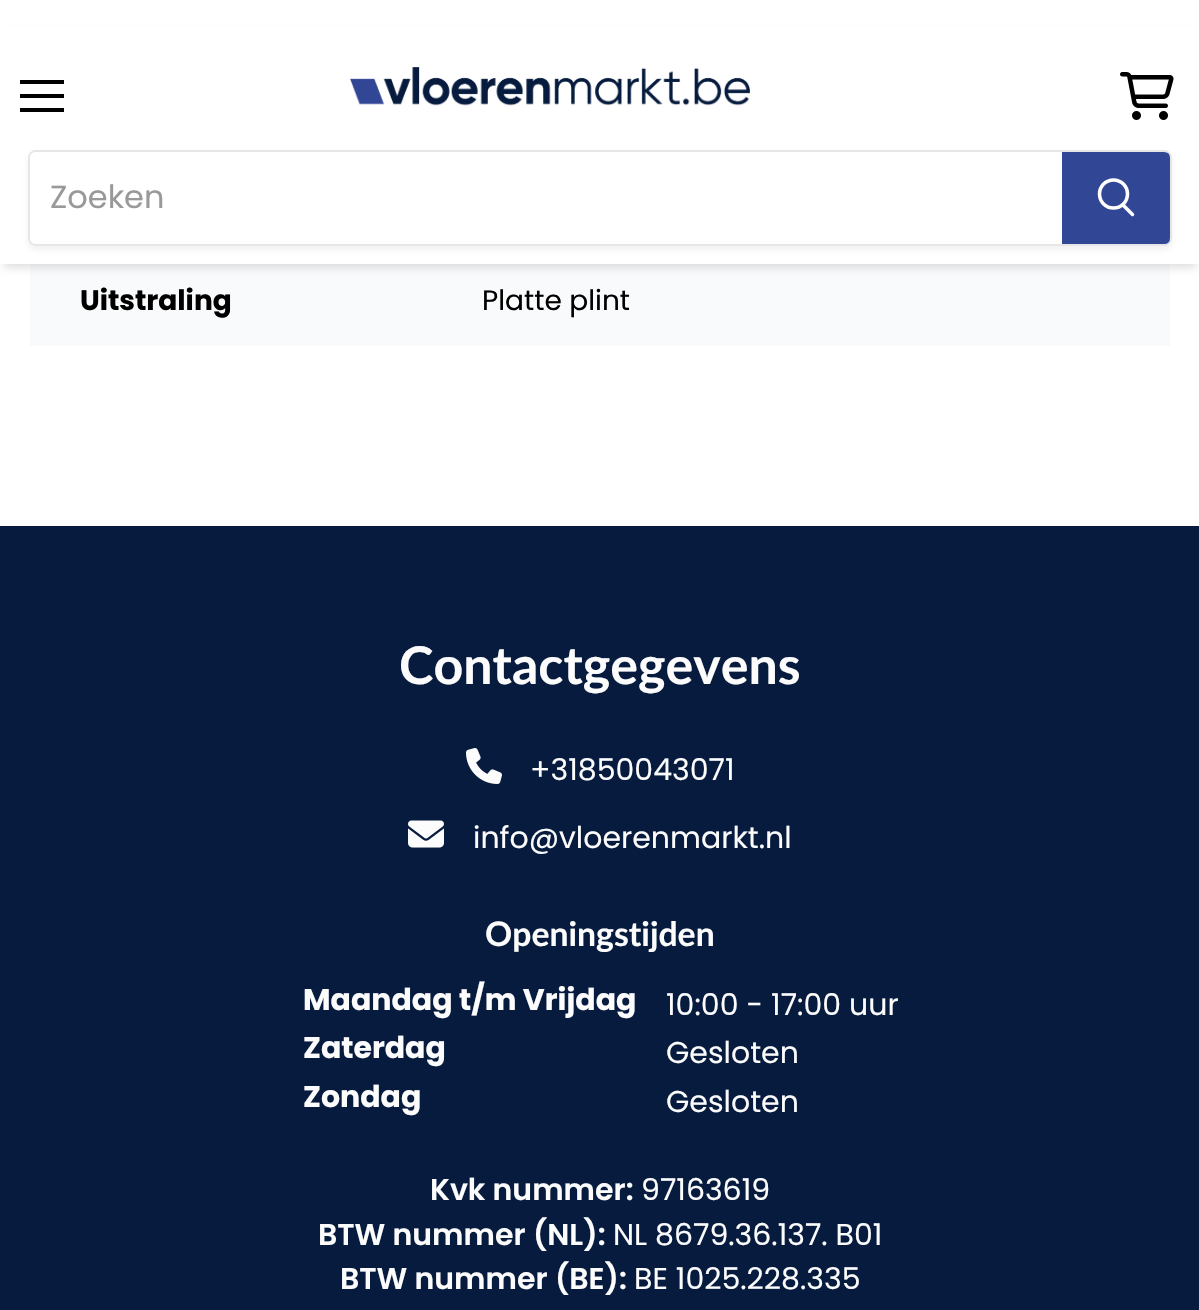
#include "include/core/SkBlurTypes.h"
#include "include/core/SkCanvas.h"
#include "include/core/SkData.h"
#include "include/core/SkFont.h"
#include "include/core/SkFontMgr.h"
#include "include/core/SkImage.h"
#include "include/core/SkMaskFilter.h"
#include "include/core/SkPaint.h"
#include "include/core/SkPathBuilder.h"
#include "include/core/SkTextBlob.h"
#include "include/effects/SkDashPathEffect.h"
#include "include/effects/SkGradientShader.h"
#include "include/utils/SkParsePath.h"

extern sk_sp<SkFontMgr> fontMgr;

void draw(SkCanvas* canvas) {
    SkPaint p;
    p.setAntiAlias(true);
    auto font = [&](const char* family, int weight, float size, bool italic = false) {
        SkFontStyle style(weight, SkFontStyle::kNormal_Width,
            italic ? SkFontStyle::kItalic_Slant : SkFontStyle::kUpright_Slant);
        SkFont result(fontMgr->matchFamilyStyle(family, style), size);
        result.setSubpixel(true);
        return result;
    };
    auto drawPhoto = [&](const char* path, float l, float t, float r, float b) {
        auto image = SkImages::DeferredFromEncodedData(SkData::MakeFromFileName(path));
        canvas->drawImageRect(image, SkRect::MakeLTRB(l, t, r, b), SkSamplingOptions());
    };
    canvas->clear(0xFFFFFFFF);
    p.setColor(0xFFF9FAFB);
    canvas->drawRect(SkRect::MakeLTRB(30, 264, 1170, 346), p);
    p.setColor(0x40808080);
    p.setMaskFilter(SkMaskFilter::MakeBlur(kNormal_SkBlurStyle, 4));
    canvas->drawRect(SkRect::MakeLTRB(4, 32, 1196, 268), p);
    p.setMaskFilter(nullptr);
    {
        const struct { float l, t, r, b; SkColor color; } items[] = {
            {0, 26, 1199, 264, 0xFFFFFFFF},
            {20, 80, 64, 84, 0xFF000000},
            {20, 94, 64, 98, 0xFF000000},
            {20, 108, 64, 112, 0xFF000000},
        };
        for (auto [l, t, r, b, color] : items) {
            p.setColor(color);
            canvas->drawRect(SkRect::MakeLTRB(l, t, r, b), p);
        }
    }
    drawPhoto("media/1.png", 1120, 72, 1174, 120);
    drawPhoto("media/2.png", 350, 67, 750, 106);
    canvas->save();
    canvas->clipPath(SkPathBuilder(SkPathFillType::kEvenOdd).moveTo(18, 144).lineTo(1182, 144).lineTo(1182, 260).lineTo(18, 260).close().moveTo(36, 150).lineTo(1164, 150).cubicTo(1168.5f, 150, 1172, 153.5f, 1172, 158).lineTo(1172, 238).cubicTo(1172, 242.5f, 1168.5f, 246, 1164, 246).lineTo(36, 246).cubicTo(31.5f, 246, 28, 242.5f, 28, 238).lineTo(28, 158).cubicTo(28, 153.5f, 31.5f, 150, 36, 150).close().detach(), true);
    p.setColor(0x1C808080);
    p.setMaskFilter(SkMaskFilter::MakeBlur(kNormal_SkBlurStyle, 3));
    canvas->drawRoundRect(SkRect::MakeLTRB(28, 154, 1172, 250), 8, 8, p);
    p.setMaskFilter(nullptr);
    canvas->restore();
    p.setStyle(SkPaint::kStroke_Style);
    p.setStrokeWidth(2);
    p.setColor(0x33808080);
    canvas->drawRoundRect(SkRect::MakeLTRB(29, 151, 1171, 245), 7, 7, p);
    p.setStyle(SkPaint::kFill_Style);
    p.setColor(0xFFFFFFFF);
    canvas->drawPath(SkPathBuilder().moveTo(36, 152).lineTo(1062, 152).lineTo(1062, 244).lineTo(36, 244).cubicTo(32.5f, 244, 30, 241.5f, 30, 238).lineTo(30, 158).cubicTo(30, 154.5f, 32.5f, 152, 36, 152).close().detach(), p);
    auto font1 = font("Poppins", 400, 32);
    p.setColor(0xFF999999);
    canvas->drawString("Zoeken", 50, 208, font1, p);
    p.setColor(0xFF324696);
    canvas->drawPath(SkPathBuilder().moveTo(1063, 153).lineTo(1164, 153).cubicTo(1167, 153, 1169, 155, 1169, 158).lineTo(1169, 238).cubicTo(1169, 241, 1167, 243, 1164, 243).lineTo(1063, 243).close().detach(), p);
    p.setStyle(SkPaint::kStroke_Style);
    canvas->drawPath(SkPathBuilder().moveTo(1063, 153).lineTo(1164, 153).cubicTo(1167, 153, 1169, 155, 1169, 158).lineTo(1169, 238).cubicTo(1169, 241, 1167, 243, 1164, 243).lineTo(1063, 243).close().detach(), p);
    p.setStrokeWidth(3.5f);
    p.setStrokeCap(SkPaint::kRound_Cap);
    p.setColor(0xFFFFFFFF);
    canvas->drawPath(SkPathBuilder().moveTo(1132.5f, 214.5f).lineTo(1123, 205).detach(), p);
    p.setStrokeCap(SkPaint::kButt_Cap);
    canvas->drawCircle(1113.5f, 194, 14, p);
    auto font2 = font("Poppins", 700, 28);
    p.setStyle(SkPaint::kFill_Style);
    p.setColor(0xFF000000);
    canvas->drawString("Uitstraling", 80, 310, font2, p);
    auto font3 = font("Poppins", 400, 28);
    canvas->drawString("Platte plint", 482, 310, font3, p);
    p.setColor(0xFF061B3D);
    canvas->drawRect(SkRect::MakeLTRB(0, 526, 1199, 1310), p);
    auto font4 = font("Lato", 700, 52);
    p.setColor(0xFFFCFCFD);
    canvas->drawString("Contactgegevens", 399, 684, font4, p);
    drawPhoto("media/3.png", 466, 748, 502, 784);
    auto font5 = font("Poppins", 400, 30);
    canvas->drawString("+31850043071", 530, 780, font5, p);
    drawPhoto("media/4.png", 408, 820, 444, 848);
    canvas->drawString("info@vloerenmarkt.nl", 473, 848, font5, p);
    auto font6 = font("Lato", 700, 33.75f);
    canvas->drawString("Openingstijden", 485, 946, font6, p);
    auto font7 = font("Poppins", 700, 30);
    canvas->drawString("Maandag t/m Vrijdag", 303, 1010, font7, p);
    canvas->drawString("10:00 - 17:00 uur", 666, 1015, font5, p);
    canvas->drawString("Zaterdag", 303, 1058, font7, p);
    canvas->drawString("Gesloten", 666, 1063, font5, p);
    canvas->drawString("Zondag", 303, 1107, font7, p);
    canvas->drawString("Gesloten", 666, 1112, font5, p);
    auto font8 = font("Poppins", 600, 30);
    canvas->drawString("Kvk nummer:", 430, 1200, font8, p);
    canvas->drawString("97163619", 641, 1200, font5, p);
    canvas->drawString("BTW nummer (NL):", 318, 1245, font8, p);
    canvas->drawString("NL 8679.36.137. B01", 613, 1245, font5, p);
    canvas->drawString("BTW nummer (BE):", 340, 1289, font8, p);
    canvas->drawString("BE 1025.228.335", 634, 1289, font5, p);
}
